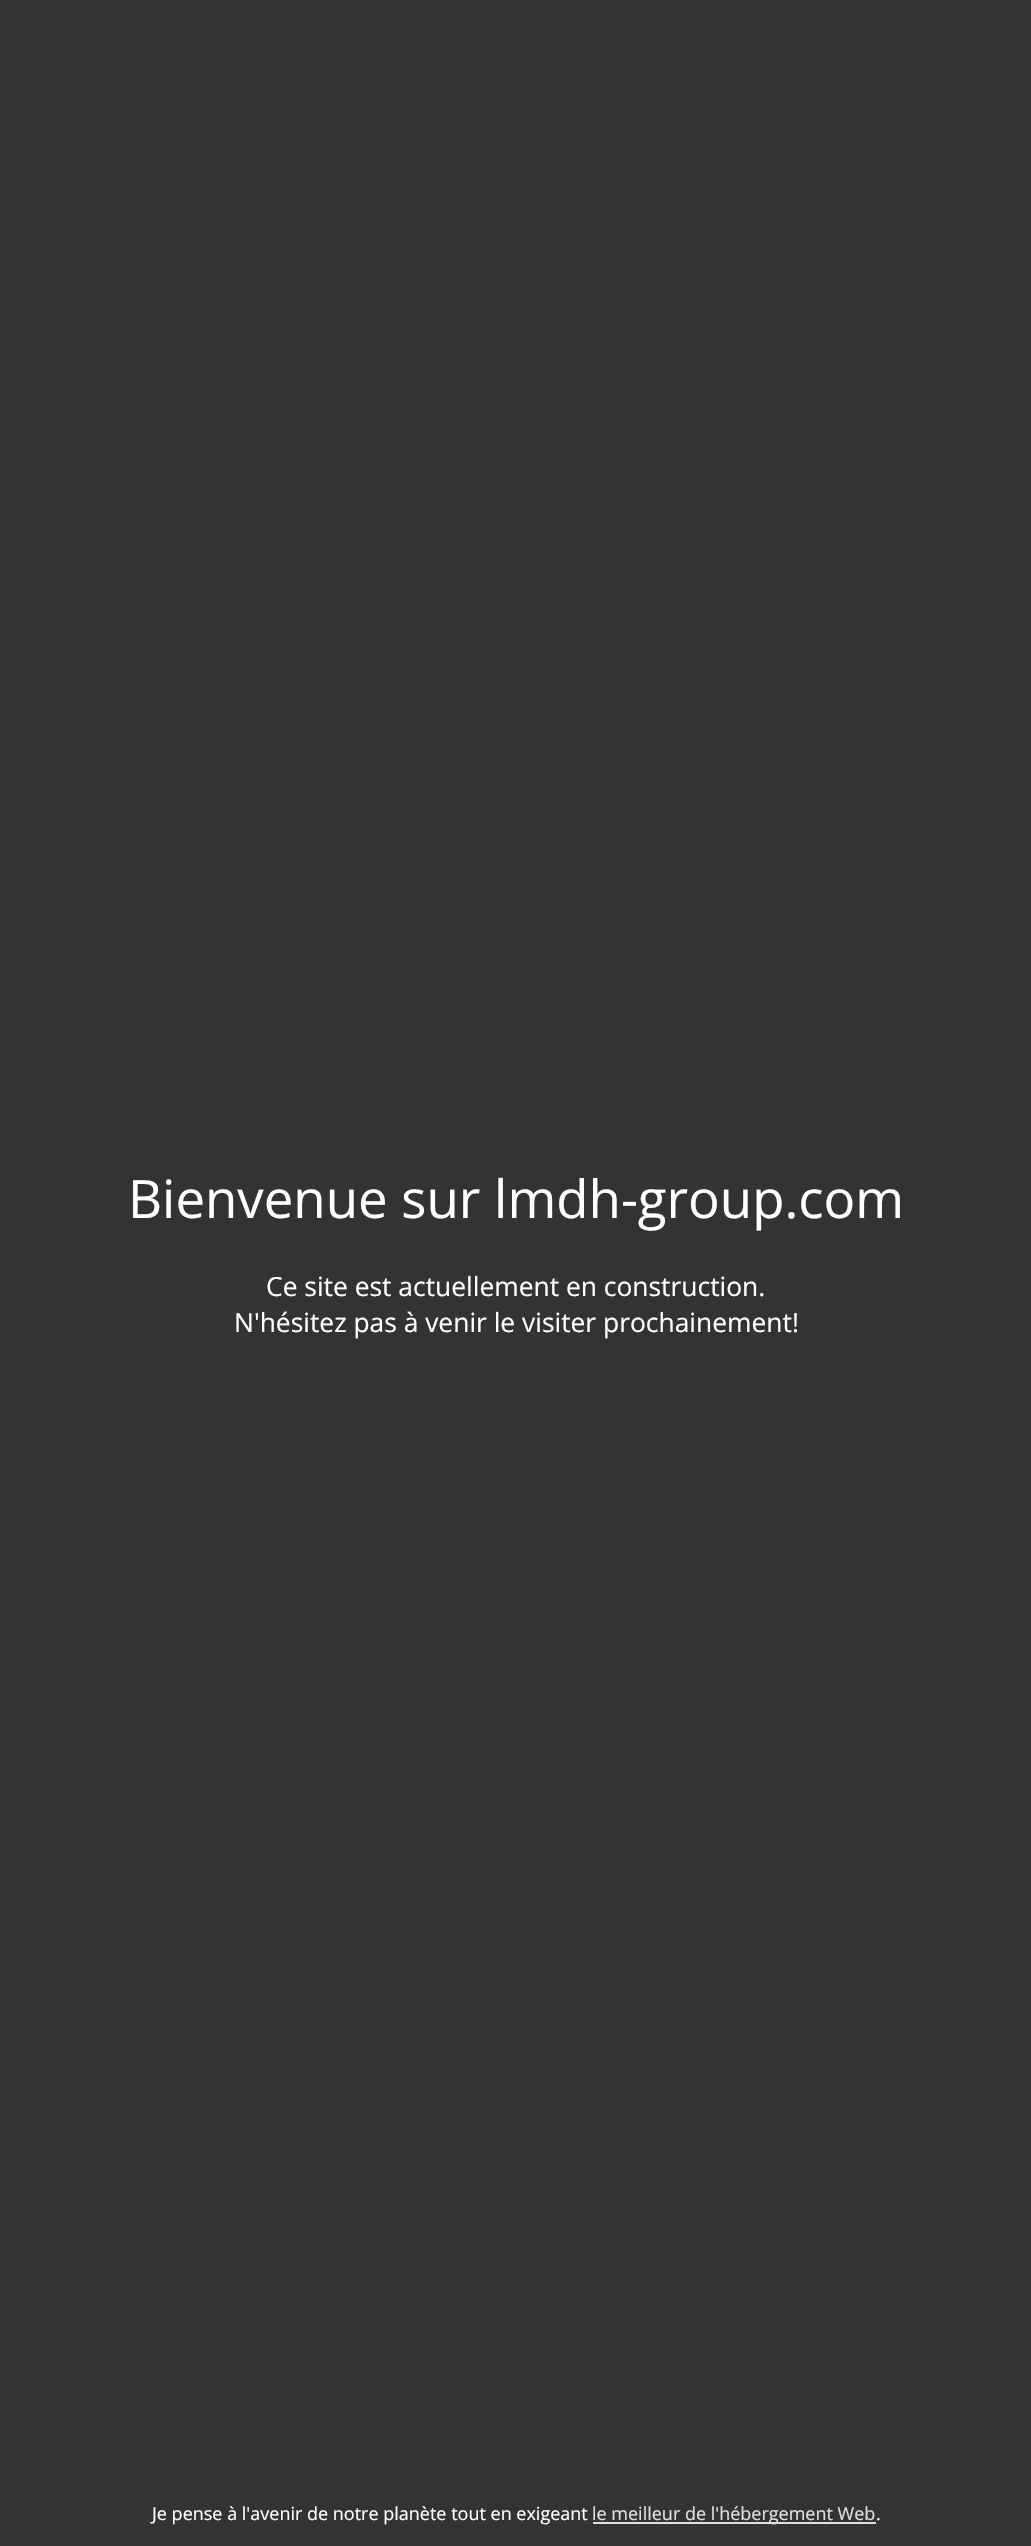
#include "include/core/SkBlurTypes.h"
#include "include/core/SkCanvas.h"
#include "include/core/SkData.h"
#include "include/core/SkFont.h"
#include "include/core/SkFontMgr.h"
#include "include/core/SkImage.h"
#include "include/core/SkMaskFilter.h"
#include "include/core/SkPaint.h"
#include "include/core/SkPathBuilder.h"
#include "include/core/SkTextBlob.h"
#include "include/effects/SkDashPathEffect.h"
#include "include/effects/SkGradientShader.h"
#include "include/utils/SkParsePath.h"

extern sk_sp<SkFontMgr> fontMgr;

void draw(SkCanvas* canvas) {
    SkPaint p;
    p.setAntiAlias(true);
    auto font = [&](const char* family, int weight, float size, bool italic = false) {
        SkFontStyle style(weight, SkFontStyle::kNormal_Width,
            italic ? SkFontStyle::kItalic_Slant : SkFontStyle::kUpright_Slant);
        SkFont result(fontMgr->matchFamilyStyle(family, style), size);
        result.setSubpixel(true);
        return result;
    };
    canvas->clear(0xFF333333);
    auto font1 = font("Open Sans", 400, 52.75f);
    p.setColor(0xFFFFFFFF);
    canvas->drawString("Bienvenue sur lmdh-group.com", 128, 1218, font1, p);
    auto font2 = font("Open Sans", 400, 26.4f);
    canvas->drawString("Ce site est actuellement en construction.", 266, 1296, font2, p);
    canvas->drawString("N'hésitez pas à venir le visiter prochainement!", 234, 1332, font2, p);
    auto font3 = font("Open Sans", 400, 18);
    canvas->drawString("Je pense à l'avenir de notre planète tout en exigeant", 152, 2520, font3, p);
    p.setColor(0xFFE0E0E0);
    canvas->drawRect(SkRect::MakeLTRB(593, 2522, 876, 2524), p);
    canvas->drawString("le meilleur de l'hébergement Web", 592, 2520, font3, p);
    p.setColor(0xFFFFFFFF);
    canvas->drawString(".", 876, 2520, font3, p);
}
